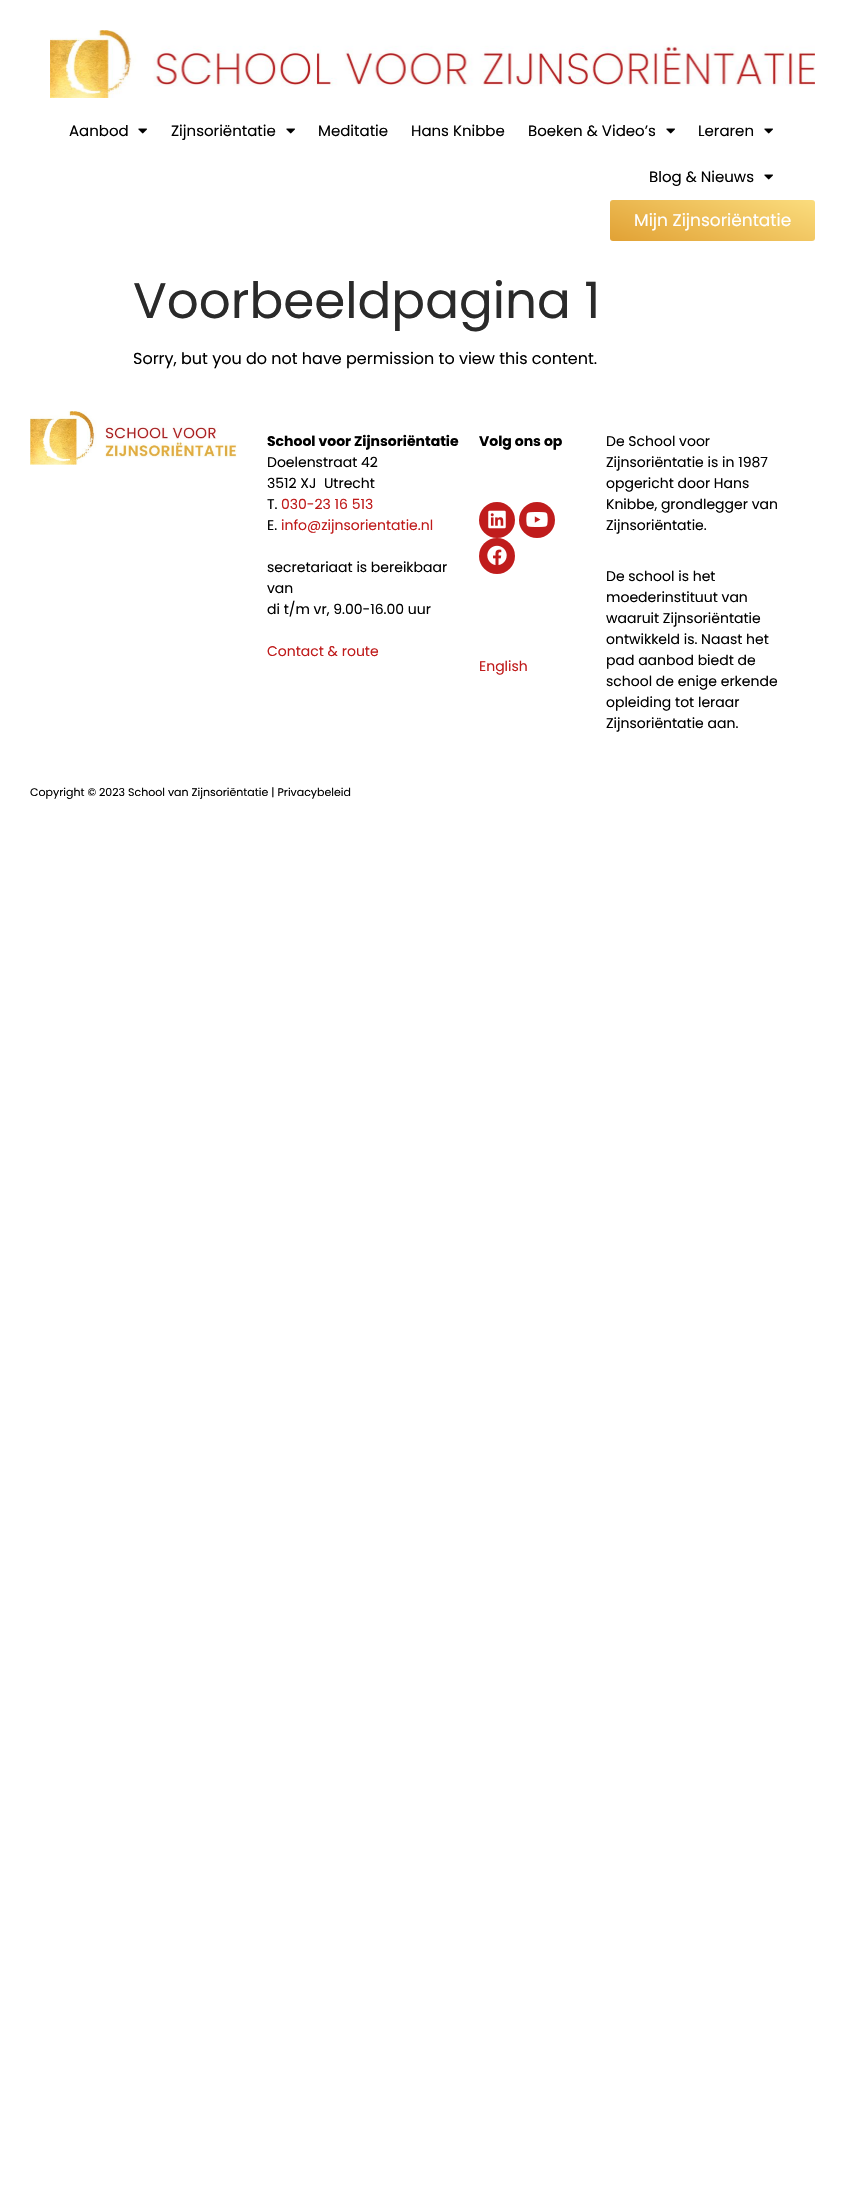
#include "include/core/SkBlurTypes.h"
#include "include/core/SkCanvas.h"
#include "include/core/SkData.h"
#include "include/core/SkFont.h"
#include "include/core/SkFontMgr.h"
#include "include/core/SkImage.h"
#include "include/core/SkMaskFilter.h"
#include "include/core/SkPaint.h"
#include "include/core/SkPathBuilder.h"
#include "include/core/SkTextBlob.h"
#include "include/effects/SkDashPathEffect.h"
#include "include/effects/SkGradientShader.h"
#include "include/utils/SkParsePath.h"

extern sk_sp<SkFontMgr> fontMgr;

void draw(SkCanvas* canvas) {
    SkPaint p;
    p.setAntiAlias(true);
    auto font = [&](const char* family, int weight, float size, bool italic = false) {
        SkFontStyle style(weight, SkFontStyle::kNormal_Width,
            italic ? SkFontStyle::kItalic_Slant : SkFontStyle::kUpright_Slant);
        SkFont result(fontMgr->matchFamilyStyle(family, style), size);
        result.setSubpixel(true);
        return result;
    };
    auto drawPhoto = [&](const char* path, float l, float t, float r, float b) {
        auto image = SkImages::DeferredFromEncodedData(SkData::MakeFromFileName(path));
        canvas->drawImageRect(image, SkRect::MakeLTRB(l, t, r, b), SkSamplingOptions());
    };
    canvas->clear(0xFFFFFFFF);
    drawPhoto("media/1.png", 50, 30, 815, 98);
    auto font1 = font("Poppins", 400, 15);
    p.setColor(0xFF000000);
    canvas->drawString("Aanbod", 69, 136, font1, p);
    drawPhoto("media/2.png", 138, 128, 147, 134);
    canvas->drawString("Zijnsoriëntatie", 171, 136, font1, p);
    drawPhoto("media/2.png", 286, 128, 295, 134);
    {
        const struct { const char* s; float x, y; } items[] = {
            {"Meditatie", 318, 136},
            {"Hans Knibbe", 411, 136},
            {"Boeken & Video’s", 528, 136},
        };
        for (auto [s, x, y] : items) {
            canvas->drawString(s, x, y, font1, p);
        }
    }
    drawPhoto("media/2.png", 666, 128, 675, 134);
    canvas->drawString("Leraren", 698, 136, font1, p);
    drawPhoto("media/2.png", 764, 128, 773, 134);
    canvas->drawString("Blog & Nieuws", 649, 182, font1, p);
    drawPhoto("media/2.png", 764, 174, 773, 180);
    {
        const SkColor colors[] = {0xFFFBDD7E, 0xFFE1A134};
        const float stops[] = {0, 1};
        const SkPoint ends[] = {{731, 169}, {694, 272}};
        p.setShader(SkGradientShader::MakeLinear(ends, colors, stops, 2, SkTileMode::kClamp));
        p.setAlpha(255);
    }
    canvas->drawRoundRect(SkRect::MakeLTRB(610, 200, 815, 241), 3, 3, p);
    auto font2 = font("Poppins", 400, 17);
    p.setShader(nullptr);
    p.setColor(0xFFFFFFFF);
    canvas->drawString("Mijn Zijnsoriëntatie", 634, 226, font2, p);
    auto font3 = font("Poppins", 400, 50);
    p.setColor(0xFF2A2A2A);
    canvas->drawString("Voorbeeldpagina 1", 133, 318, font3, p);
    auto font4 = font("Poppins", 400, 16);
    p.setColor(0xFF000000);
    canvas->drawString("Sorry, but you do not have permission to view this content.", 133, 364, font4, p);
    drawPhoto("media/3.png", 30, 411, 237, 465);
    auto font5 = font("Poppins", 700, 14);
    canvas->drawString("School voor Zijnsoriëntatie", 267, 446, font5, p);
    auto font6 = font("Poppins", 400, 14);
    {
        const struct { const char* s; float x, y; } items[] = {
            {"Doelenstraat 42", 267, 467},
            {"3512 XJ  Utrecht", 267, 488},
            {"T.", 267, 509},
        };
        for (auto [s, x, y] : items) {
            canvas->drawString(s, x, y, font6, p);
        }
    }
    p.setColor(0xFFC01C1C);
    canvas->drawString("030-23 16 513", 281, 509, font6, p);
    p.setColor(0xFF000000);
    canvas->drawString("E.", 267, 530, font6, p);
    p.setColor(0xFFC01C1C);
    canvas->drawString("info@zijnsorientatie.nl", 281, 530, font6, p);
    p.setColor(0xFF000000);
    {
        const struct { const char* s; float x, y; } items[] = {
            {"secretariaat is bereikbaar", 267, 572},
            {"van", 267, 593},
            {"di t/m vr, 9.00-16.00 uur", 267, 614},
        };
        for (auto [s, x, y] : items) {
            canvas->drawString(s, x, y, font6, p);
        }
    }
    p.setColor(0xFFC01C1C);
    canvas->drawString("Contact & route", 267, 656, font6, p);
    p.setColor(0xFF000000);
    canvas->drawString("Volg ons op", 479, 446, font5, p);
    p.setColor(0xFFC01C1C);
    canvas->drawCircle(497, 520, 18, p);
    drawPhoto("media/4.png", 488, 510, 506, 529);
    canvas->drawCircle(537, 520, 18, p);
    drawPhoto("media/5.png", 526, 512, 548, 527);
    canvas->drawCircle(497, 556, 18, p);
    drawPhoto("media/6.png", 487, 545, 507, 565);
    canvas->drawString("English", 479, 671, font6, p);
    p.setColor(0xFF000000);
    {
        const struct { const char* s; float x, y; } items[] = {
            {"De School voor", 606, 446},
            {"Zijnsoriëntatie is in 1987", 606, 467},
            {"opgericht door Hans", 606, 488},
            {"Knibbe, grondlegger van", 606, 509},
            {"Zijnsoriëntatie.", 606, 530},
            {"De school is het", 606, 581},
            {"moederinstituut van", 606, 602},
            {"waaruit Zijnsoriëntatie", 606, 623},
            {"ontwikkeld is. Naast het", 606, 644},
            {"pad aanbod biedt de", 606, 665},
            {"school de enige erkende", 606, 686},
            {"opleiding tot leraar", 606, 707},
            {"Zijnsoriëntatie aan.", 606, 728},
        };
        for (auto [s, x, y] : items) {
            canvas->drawString(s, x, y, font6, p);
        }
    }
    auto font7 = font("Poppins", 400, 11);
    canvas->drawString("Copyright © 2023 School van Zijnsoriëntatie | Privacybeleid", 30, 796, font7, p);
}
